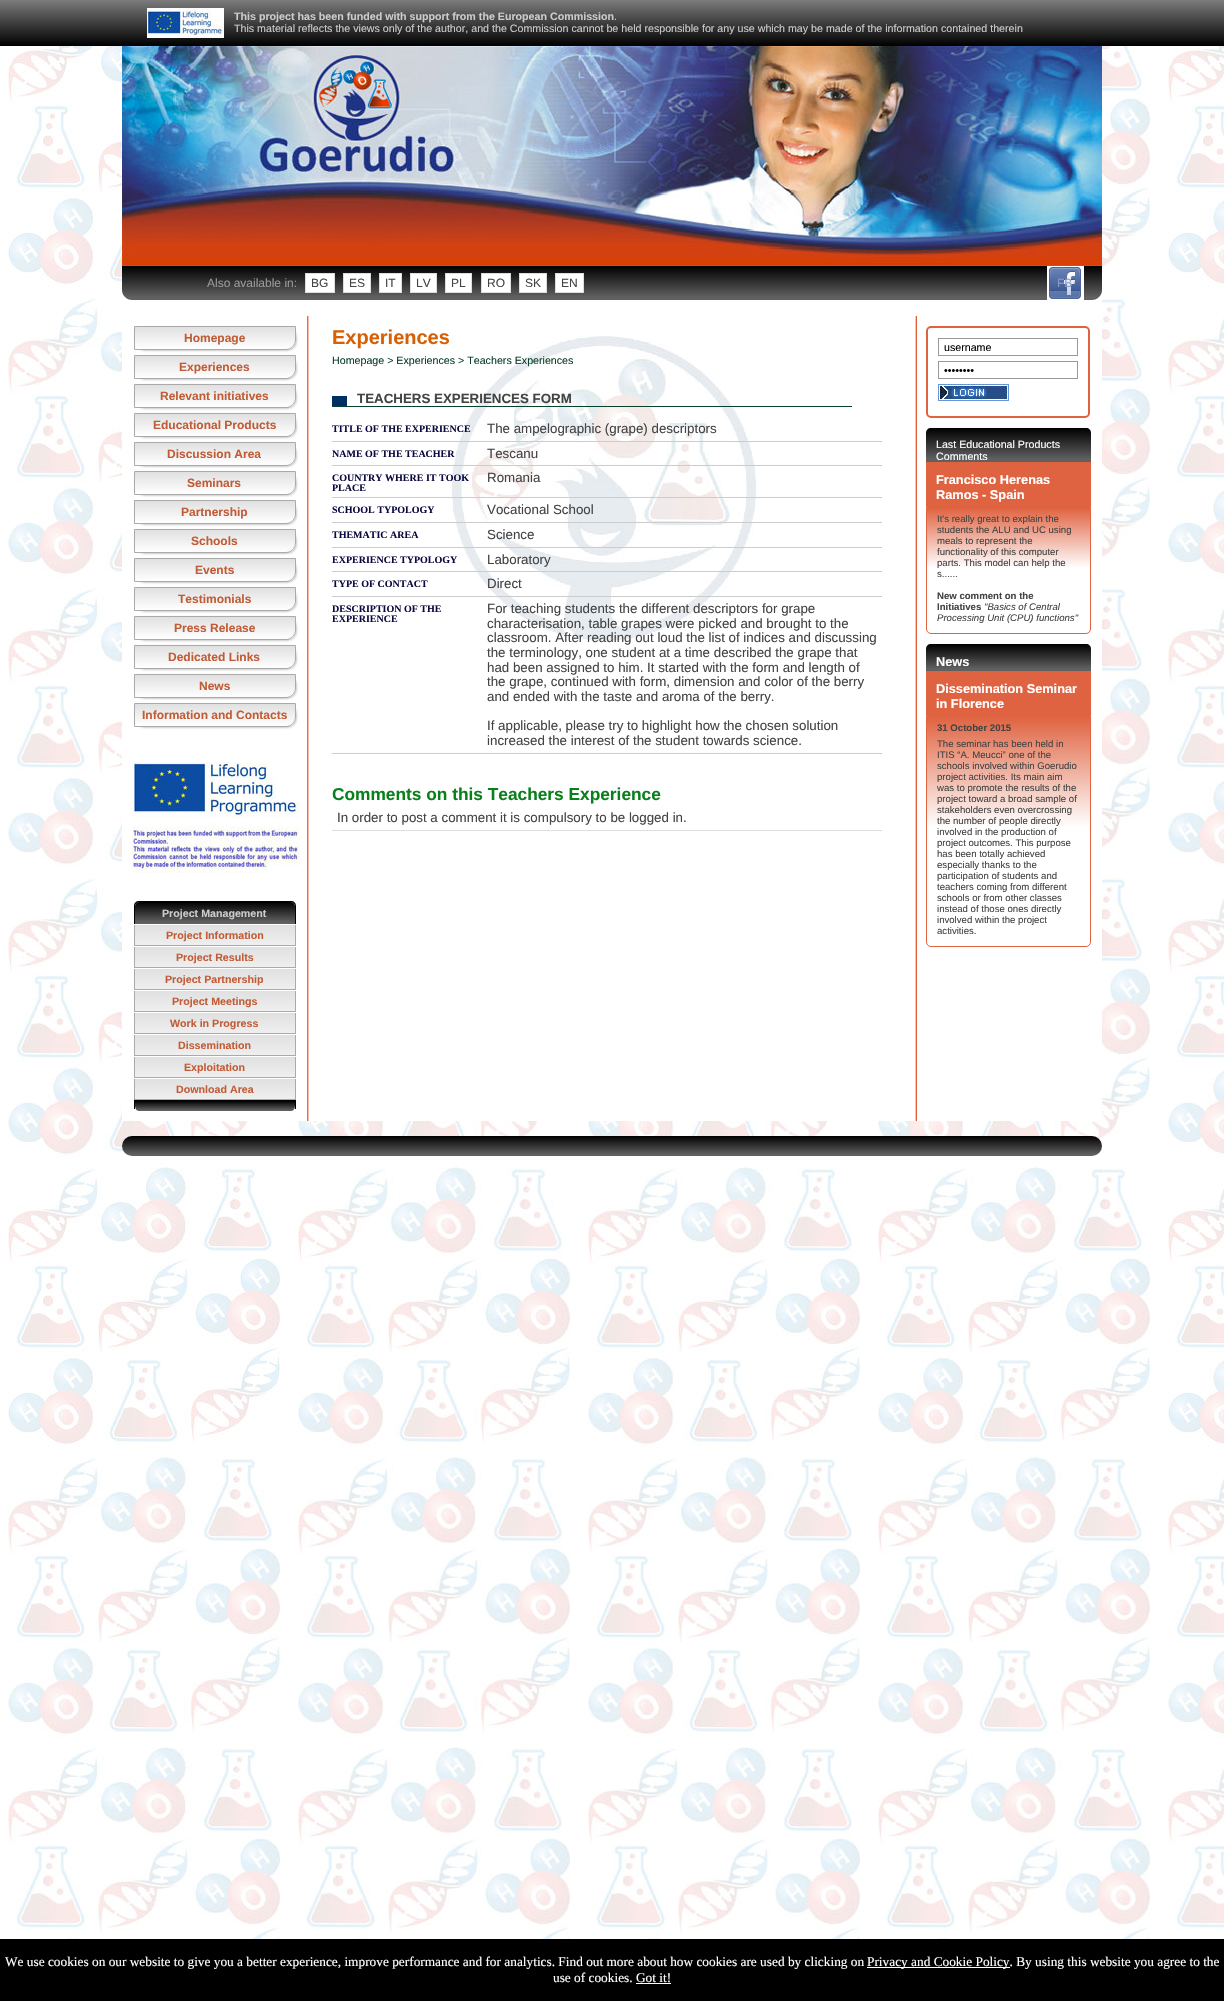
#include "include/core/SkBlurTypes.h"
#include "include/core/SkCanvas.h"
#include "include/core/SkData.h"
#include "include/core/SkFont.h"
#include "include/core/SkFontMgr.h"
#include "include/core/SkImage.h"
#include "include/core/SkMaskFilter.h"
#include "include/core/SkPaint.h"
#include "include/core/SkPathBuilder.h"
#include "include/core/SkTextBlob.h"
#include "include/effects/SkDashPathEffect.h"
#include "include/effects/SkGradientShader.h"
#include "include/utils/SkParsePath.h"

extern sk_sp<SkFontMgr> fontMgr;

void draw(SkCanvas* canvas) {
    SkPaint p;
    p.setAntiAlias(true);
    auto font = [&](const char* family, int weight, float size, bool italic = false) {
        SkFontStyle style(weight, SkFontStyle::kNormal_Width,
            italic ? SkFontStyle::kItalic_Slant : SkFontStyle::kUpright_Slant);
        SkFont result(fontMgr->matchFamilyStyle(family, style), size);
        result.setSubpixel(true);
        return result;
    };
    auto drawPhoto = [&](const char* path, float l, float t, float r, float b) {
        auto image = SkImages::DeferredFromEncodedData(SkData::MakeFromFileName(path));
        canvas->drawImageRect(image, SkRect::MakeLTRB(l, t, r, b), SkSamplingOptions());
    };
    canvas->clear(0xFFFFFFFF);
    drawPhoto("media/1.png", 8, 46, 1224, 1939);
    {
        const SkColor colors[] = {0xFF7C7C7C, 0xFF000000};
        const float stops[] = {0, 1};
        const SkPoint ends[] = {{612, 0}, {612, 46}};
        p.setShader(SkGradientShader::MakeLinear(ends, colors, stops, 2, SkTileMode::kClamp));
        p.setAlpha(255);
    }
    canvas->drawRect(SkRect::MakeLTRB(0, 0, 1224, 46), p);
    drawPhoto("media/2.png", 147, 8, 224, 38);
    auto font1 = font("Liberation Sans", 700, 10.67f);
    p.setShader(nullptr);
    p.setColor(0xFFCCCCCC);
    canvas->drawString("This project has been funded with support from the European Commission", 234, 20, font1, p);
    auto font2 = font("Liberation Sans", 400, 10.67f);
    canvas->drawString(".", 614, 20, font2, p);
    canvas->drawString("This material reflects the views only of the author, and the Commission cannot be held responsible for any use which may be made of the information contained therein", 234, 32, font2, p);
    p.setColor(0xFFFFFFFF);
    canvas->drawRect(SkRect::MakeLTRB(145, 296, 1102, 316), p);
    drawPhoto("media/3.png", 122, 46, 1102, 266);
    {
        const SkColor colors[] = {0xFF000000, 0xFF606060};
        const float stops[] = {0, 0.92f};
        const SkPoint ends[] = {{612, 266}, {612, 300}};
        p.setShader(SkGradientShader::MakeLinear(ends, colors, stops, 2, SkTileMode::kClamp));
        p.setAlpha(255);
    }
    canvas->drawPath(SkPathBuilder().moveTo(122, 266).lineTo(1102, 266).lineTo(1102, 290).cubicTo(1102, 295.5f, 1097.5f, 300, 1092, 300).lineTo(132, 300).cubicTo(126.5f, 300, 122, 295.5f, 122, 290).close().detach(), p);
    auto font3 = font("Liberation Sans", 400, 12);
    p.setShader(nullptr);
    p.setColor(0xFF999999);
    canvas->drawString("Also available in:", 207, 287, font3, p);
    p.setColor(0xFFFFFFFF);
    canvas->drawRect(SkRect::MakeLTRB(305.5f, 273.5f, 334.5f, 292.5f), p);
    p.setStyle(SkPaint::kStroke_Style);
    p.setStrokeWidth(1);
    p.setColor(0xFFDDDDDD);
    canvas->drawRect(SkRect::MakeLTRB(305.5f, 273.5f, 334.5f, 292.5f), p);
    p.setStyle(SkPaint::kFill_Style);
    p.setColor(0xFF444444);
    canvas->drawString("BG", 311, 287, font3, p);
    p.setColor(0xFFFFFFFF);
    canvas->drawRect(SkRect::MakeLTRB(343.5f, 273.5f, 370.5f, 292.5f), p);
    p.setStyle(SkPaint::kStroke_Style);
    p.setColor(0xFFDDDDDD);
    canvas->drawRect(SkRect::MakeLTRB(343.5f, 273.5f, 370.5f, 292.5f), p);
    p.setStyle(SkPaint::kFill_Style);
    p.setColor(0xFF444444);
    canvas->drawString("ES", 349, 287, font3, p);
    p.setColor(0xFFFFFFFF);
    canvas->drawRect(SkRect::MakeLTRB(379.5f, 273.5f, 401.5f, 292.5f), p);
    p.setStyle(SkPaint::kStroke_Style);
    p.setColor(0xFFDDDDDD);
    canvas->drawRect(SkRect::MakeLTRB(379.5f, 273.5f, 401.5f, 292.5f), p);
    p.setStyle(SkPaint::kFill_Style);
    p.setColor(0xFF444444);
    canvas->drawString("IT", 385, 287, font3, p);
    p.setColor(0xFFFFFFFF);
    canvas->drawRect(SkRect::MakeLTRB(410.5f, 273.5f, 436.5f, 292.5f), p);
    p.setStyle(SkPaint::kStroke_Style);
    p.setColor(0xFFDDDDDD);
    canvas->drawRect(SkRect::MakeLTRB(410.5f, 273.5f, 436.5f, 292.5f), p);
    p.setStyle(SkPaint::kFill_Style);
    p.setColor(0xFF444444);
    canvas->drawString("LV", 416, 287, font3, p);
    p.setColor(0xFFFFFFFF);
    canvas->drawRect(SkRect::MakeLTRB(445.5f, 273.5f, 471.5f, 292.5f), p);
    p.setStyle(SkPaint::kStroke_Style);
    p.setColor(0xFFDDDDDD);
    canvas->drawRect(SkRect::MakeLTRB(445.5f, 273.5f, 471.5f, 292.5f), p);
    p.setStyle(SkPaint::kFill_Style);
    p.setColor(0xFF444444);
    canvas->drawString("PL", 451, 287, font3, p);
    p.setColor(0xFFFFFFFF);
    canvas->drawRect(SkRect::MakeLTRB(481.5f, 273.5f, 510.5f, 292.5f), p);
    p.setStyle(SkPaint::kStroke_Style);
    p.setColor(0xFFDDDDDD);
    canvas->drawRect(SkRect::MakeLTRB(481.5f, 273.5f, 510.5f, 292.5f), p);
    p.setStyle(SkPaint::kFill_Style);
    p.setColor(0xFF444444);
    canvas->drawString("RO", 487, 287, font3, p);
    p.setColor(0xFFFFFFFF);
    canvas->drawRect(SkRect::MakeLTRB(519.5f, 273.5f, 546.5f, 292.5f), p);
    p.setStyle(SkPaint::kStroke_Style);
    p.setColor(0xFFDDDDDD);
    canvas->drawRect(SkRect::MakeLTRB(519.5f, 273.5f, 546.5f, 292.5f), p);
    p.setStyle(SkPaint::kFill_Style);
    p.setColor(0xFF444444);
    canvas->drawString("SK", 525, 287, font3, p);
    p.setColor(0xFFFFFFFF);
    canvas->drawRect(SkRect::MakeLTRB(555.5f, 273.5f, 583.5f, 292.5f), p);
    p.setStyle(SkPaint::kStroke_Style);
    p.setColor(0xFFDDDDDD);
    canvas->drawRect(SkRect::MakeLTRB(555.5f, 273.5f, 583.5f, 292.5f), p);
    p.setStyle(SkPaint::kFill_Style);
    p.setColor(0xFF444444);
    canvas->drawString("EN", 561, 287, font3, p);
    p.setColor(0xFFFFFFFF);
    canvas->drawRect(SkRect::MakeLTRB(1047, 266, 1084, 300), p);
    drawPhoto("media/4.png", 1049, 267, 1081, 299);
    p.setColor(0xFF8B9DC4);
    canvas->drawString("FB", 1057, 287, font3, p);
    p.setColor(0xFFFFFFFF);
    canvas->drawRect(SkRect::MakeLTRB(122, 316, 1102, 1121), p);
    drawPhoto("media/5.png", 307, 316, 917, 1121);
    p.setColor(0xFFCCCCCC);
    p.setMaskFilter(SkMaskFilter::MakeBlur(kNormal_SkBlurStyle, 1));
    canvas->drawRoundRect(SkRect::MakeLTRB(135, 327, 297, 351), 10, 10, p);
    p.setMaskFilter(nullptr);
    canvas->save();
    canvas->clipPath(SkPathBuilder().moveTo(134, 326).lineTo(296, 326).lineTo(296, 340).cubicTo(296, 345.5f, 291.5f, 350, 286, 350).lineTo(134, 350).close().detach(), true);
    {
        const SkColor colors[] = {0xFFE0E0E0, 0xFFFFFFFF};
        const float stops[] = {0, 1};
        const SkPoint ends[] = {{215, 327}, {215, 349}};
        p.setShader(SkGradientShader::MakeLinear(ends, colors, stops, 2, SkTileMode::kClamp));
        p.setAlpha(255);
    }
    canvas->drawRect(SkRect::MakeLTRB(135, 327, 296, 349), p);
    canvas->restore();
    p.setStyle(SkPaint::kStroke_Style);
    p.setShader(nullptr);
    p.setColor(0xFFAAAAAA);
    canvas->drawPath(SkPathBuilder().moveTo(134.5f, 326.5f).lineTo(295.5f, 326.5f).lineTo(295.5f, 340).cubicTo(295.5f, 345, 291, 349.5f, 286, 349.5f).lineTo(134.5f, 349.5f).close().detach(), p);
    auto font4 = font("Liberation Sans", 700, 12);
    p.setStyle(SkPaint::kFill_Style);
    p.setColor(0xFFC15C36);
    canvas->drawString("Homepage", 184, 342, font4, p);
    p.setColor(0xFFCCCCCC);
    p.setMaskFilter(SkMaskFilter::MakeBlur(kNormal_SkBlurStyle, 1));
    canvas->drawRoundRect(SkRect::MakeLTRB(135, 356, 297, 380), 10, 10, p);
    p.setMaskFilter(nullptr);
    canvas->save();
    canvas->clipPath(SkPathBuilder().moveTo(134, 355).lineTo(296, 355).lineTo(296, 369).cubicTo(296, 374.5f, 291.5f, 379, 286, 379).lineTo(134, 379).close().detach(), true);
    {
        const SkColor colors[] = {0xFFE0E0E0, 0xFFFFFFFF};
        const float stops[] = {0, 1};
        const SkPoint ends[] = {{215, 356}, {215, 378}};
        p.setShader(SkGradientShader::MakeLinear(ends, colors, stops, 2, SkTileMode::kClamp));
        p.setAlpha(255);
    }
    canvas->drawRect(SkRect::MakeLTRB(135, 356, 296, 378), p);
    canvas->restore();
    p.setStyle(SkPaint::kStroke_Style);
    p.setShader(nullptr);
    p.setColor(0xFFAAAAAA);
    canvas->drawPath(SkPathBuilder().moveTo(134.5f, 355.5f).lineTo(295.5f, 355.5f).lineTo(295.5f, 369).cubicTo(295.5f, 374, 291, 378.5f, 286, 378.5f).lineTo(134.5f, 378.5f).close().detach(), p);
    p.setStyle(SkPaint::kFill_Style);
    p.setColor(0xFFC15C36);
    canvas->drawString("Experiences", 179, 371, font4, p);
    p.setColor(0xFFCCCCCC);
    p.setMaskFilter(SkMaskFilter::MakeBlur(kNormal_SkBlurStyle, 1));
    canvas->drawRoundRect(SkRect::MakeLTRB(135, 385, 297, 409), 10, 10, p);
    p.setMaskFilter(nullptr);
    canvas->save();
    canvas->clipPath(SkPathBuilder().moveTo(134, 384).lineTo(296, 384).lineTo(296, 398).cubicTo(296, 403.5f, 291.5f, 408, 286, 408).lineTo(134, 408).close().detach(), true);
    {
        const SkColor colors[] = {0xFFE0E0E0, 0xFFFFFFFF};
        const float stops[] = {0, 1};
        const SkPoint ends[] = {{215, 385}, {215, 407}};
        p.setShader(SkGradientShader::MakeLinear(ends, colors, stops, 2, SkTileMode::kClamp));
        p.setAlpha(255);
    }
    canvas->drawRect(SkRect::MakeLTRB(135, 385, 296, 407), p);
    canvas->restore();
    p.setStyle(SkPaint::kStroke_Style);
    p.setShader(nullptr);
    p.setColor(0xFFAAAAAA);
    canvas->drawPath(SkPathBuilder().moveTo(134.5f, 384.5f).lineTo(295.5f, 384.5f).lineTo(295.5f, 398).cubicTo(295.5f, 403, 291, 407.5f, 286, 407.5f).lineTo(134.5f, 407.5f).close().detach(), p);
    p.setStyle(SkPaint::kFill_Style);
    p.setColor(0xFFC15C36);
    canvas->drawString("Relevant initiatives", 160, 400, font4, p);
    p.setColor(0xFFCCCCCC);
    p.setMaskFilter(SkMaskFilter::MakeBlur(kNormal_SkBlurStyle, 1));
    canvas->drawRoundRect(SkRect::MakeLTRB(135, 414, 297, 438), 10, 10, p);
    p.setMaskFilter(nullptr);
    canvas->save();
    canvas->clipPath(SkPathBuilder().moveTo(134, 413).lineTo(296, 413).lineTo(296, 427).cubicTo(296, 432.5f, 291.5f, 437, 286, 437).lineTo(134, 437).close().detach(), true);
    {
        const SkColor colors[] = {0xFFE0E0E0, 0xFFFFFFFF};
        const float stops[] = {0, 1};
        const SkPoint ends[] = {{215, 414}, {215, 436}};
        p.setShader(SkGradientShader::MakeLinear(ends, colors, stops, 2, SkTileMode::kClamp));
        p.setAlpha(255);
    }
    canvas->drawRect(SkRect::MakeLTRB(135, 414, 296, 436), p);
    canvas->restore();
    p.setStyle(SkPaint::kStroke_Style);
    p.setShader(nullptr);
    p.setColor(0xFFAAAAAA);
    canvas->drawPath(SkPathBuilder().moveTo(134.5f, 413.5f).lineTo(295.5f, 413.5f).lineTo(295.5f, 427).cubicTo(295.5f, 432, 291, 436.5f, 286, 436.5f).lineTo(134.5f, 436.5f).close().detach(), p);
    p.setStyle(SkPaint::kFill_Style);
    p.setColor(0xFFC15C36);
    canvas->drawString("Educational Products", 153, 429, font4, p);
    p.setColor(0xFFCCCCCC);
    p.setMaskFilter(SkMaskFilter::MakeBlur(kNormal_SkBlurStyle, 1));
    canvas->drawRoundRect(SkRect::MakeLTRB(135, 443, 297, 467), 10, 10, p);
    p.setMaskFilter(nullptr);
    canvas->save();
    canvas->clipPath(SkPathBuilder().moveTo(134, 442).lineTo(296, 442).lineTo(296, 456).cubicTo(296, 461.5f, 291.5f, 466, 286, 466).lineTo(134, 466).close().detach(), true);
    {
        const SkColor colors[] = {0xFFE0E0E0, 0xFFFFFFFF};
        const float stops[] = {0, 1};
        const SkPoint ends[] = {{215, 443}, {215, 465}};
        p.setShader(SkGradientShader::MakeLinear(ends, colors, stops, 2, SkTileMode::kClamp));
        p.setAlpha(255);
    }
    canvas->drawRect(SkRect::MakeLTRB(135, 443, 296, 465), p);
    canvas->restore();
    p.setStyle(SkPaint::kStroke_Style);
    p.setShader(nullptr);
    p.setColor(0xFFAAAAAA);
    canvas->drawPath(SkPathBuilder().moveTo(134.5f, 442.5f).lineTo(295.5f, 442.5f).lineTo(295.5f, 456).cubicTo(295.5f, 461, 291, 465.5f, 286, 465.5f).lineTo(134.5f, 465.5f).close().detach(), p);
    p.setStyle(SkPaint::kFill_Style);
    p.setColor(0xFFC15C36);
    canvas->drawString("Discussion Area", 167, 458, font4, p);
    p.setColor(0xFFCCCCCC);
    p.setMaskFilter(SkMaskFilter::MakeBlur(kNormal_SkBlurStyle, 1));
    canvas->drawRoundRect(SkRect::MakeLTRB(135, 472, 297, 496), 10, 10, p);
    p.setMaskFilter(nullptr);
    canvas->save();
    canvas->clipPath(SkPathBuilder().moveTo(134, 471).lineTo(296, 471).lineTo(296, 485).cubicTo(296, 490.5f, 291.5f, 495, 286, 495).lineTo(134, 495).close().detach(), true);
    {
        const SkColor colors[] = {0xFFE0E0E0, 0xFFFFFFFF};
        const float stops[] = {0, 1};
        const SkPoint ends[] = {{215, 472}, {215, 494}};
        p.setShader(SkGradientShader::MakeLinear(ends, colors, stops, 2, SkTileMode::kClamp));
        p.setAlpha(255);
    }
    canvas->drawRect(SkRect::MakeLTRB(135, 472, 296, 494), p);
    canvas->restore();
    p.setStyle(SkPaint::kStroke_Style);
    p.setShader(nullptr);
    p.setColor(0xFFAAAAAA);
    canvas->drawPath(SkPathBuilder().moveTo(134.5f, 471.5f).lineTo(295.5f, 471.5f).lineTo(295.5f, 485).cubicTo(295.5f, 490, 291, 494.5f, 286, 494.5f).lineTo(134.5f, 494.5f).close().detach(), p);
    p.setStyle(SkPaint::kFill_Style);
    p.setColor(0xFFC15C36);
    canvas->drawString("Seminars", 187, 487, font4, p);
    p.setColor(0xFFCCCCCC);
    p.setMaskFilter(SkMaskFilter::MakeBlur(kNormal_SkBlurStyle, 1));
    canvas->drawRoundRect(SkRect::MakeLTRB(135, 501, 297, 525), 10, 10, p);
    p.setMaskFilter(nullptr);
    canvas->save();
    canvas->clipPath(SkPathBuilder().moveTo(134, 500).lineTo(296, 500).lineTo(296, 514).cubicTo(296, 519.5f, 291.5f, 524, 286, 524).lineTo(134, 524).close().detach(), true);
    {
        const SkColor colors[] = {0xFFE0E0E0, 0xFFFFFFFF};
        const float stops[] = {0, 1};
        const SkPoint ends[] = {{215, 501}, {215, 523}};
        p.setShader(SkGradientShader::MakeLinear(ends, colors, stops, 2, SkTileMode::kClamp));
        p.setAlpha(255);
    }
    canvas->drawRect(SkRect::MakeLTRB(135, 501, 296, 523), p);
    canvas->restore();
    p.setStyle(SkPaint::kStroke_Style);
    p.setShader(nullptr);
    p.setColor(0xFFAAAAAA);
    canvas->drawPath(SkPathBuilder().moveTo(134.5f, 500.5f).lineTo(295.5f, 500.5f).lineTo(295.5f, 514).cubicTo(295.5f, 519, 291, 523.5f, 286, 523.5f).lineTo(134.5f, 523.5f).close().detach(), p);
    p.setStyle(SkPaint::kFill_Style);
    p.setColor(0xFFC15C36);
    canvas->drawString("Partnership", 181, 516, font4, p);
    p.setColor(0xFFCCCCCC);
    p.setMaskFilter(SkMaskFilter::MakeBlur(kNormal_SkBlurStyle, 1));
    canvas->drawRoundRect(SkRect::MakeLTRB(135, 530, 297, 554), 10, 10, p);
    p.setMaskFilter(nullptr);
    canvas->save();
    canvas->clipPath(SkPathBuilder().moveTo(134, 529).lineTo(296, 529).lineTo(296, 543).cubicTo(296, 548.5f, 291.5f, 553, 286, 553).lineTo(134, 553).close().detach(), true);
    {
        const SkColor colors[] = {0xFFE0E0E0, 0xFFFFFFFF};
        const float stops[] = {0, 1};
        const SkPoint ends[] = {{215, 530}, {215, 552}};
        p.setShader(SkGradientShader::MakeLinear(ends, colors, stops, 2, SkTileMode::kClamp));
        p.setAlpha(255);
    }
    canvas->drawRect(SkRect::MakeLTRB(135, 530, 296, 552), p);
    canvas->restore();
    p.setStyle(SkPaint::kStroke_Style);
    p.setShader(nullptr);
    p.setColor(0xFFAAAAAA);
    canvas->drawPath(SkPathBuilder().moveTo(134.5f, 529.5f).lineTo(295.5f, 529.5f).lineTo(295.5f, 543).cubicTo(295.5f, 548, 291, 552.5f, 286, 552.5f).lineTo(134.5f, 552.5f).close().detach(), p);
    p.setStyle(SkPaint::kFill_Style);
    p.setColor(0xFFC15C36);
    canvas->drawString("Schools", 191, 545, font4, p);
    p.setColor(0xFFCCCCCC);
    p.setMaskFilter(SkMaskFilter::MakeBlur(kNormal_SkBlurStyle, 1));
    canvas->drawRoundRect(SkRect::MakeLTRB(135, 559, 297, 583), 10, 10, p);
    p.setMaskFilter(nullptr);
    canvas->save();
    canvas->clipPath(SkPathBuilder().moveTo(134, 558).lineTo(296, 558).lineTo(296, 572).cubicTo(296, 577.5f, 291.5f, 582, 286, 582).lineTo(134, 582).close().detach(), true);
    {
        const SkColor colors[] = {0xFFE0E0E0, 0xFFFFFFFF};
        const float stops[] = {0, 1};
        const SkPoint ends[] = {{215, 559}, {215, 581}};
        p.setShader(SkGradientShader::MakeLinear(ends, colors, stops, 2, SkTileMode::kClamp));
        p.setAlpha(255);
    }
    canvas->drawRect(SkRect::MakeLTRB(135, 559, 296, 581), p);
    canvas->restore();
    p.setStyle(SkPaint::kStroke_Style);
    p.setShader(nullptr);
    p.setColor(0xFFAAAAAA);
    canvas->drawPath(SkPathBuilder().moveTo(134.5f, 558.5f).lineTo(295.5f, 558.5f).lineTo(295.5f, 572).cubicTo(295.5f, 577, 291, 581.5f, 286, 581.5f).lineTo(134.5f, 581.5f).close().detach(), p);
    p.setStyle(SkPaint::kFill_Style);
    p.setColor(0xFFC15C36);
    canvas->drawString("Events", 195, 574, font4, p);
    p.setColor(0xFFCCCCCC);
    p.setMaskFilter(SkMaskFilter::MakeBlur(kNormal_SkBlurStyle, 1));
    canvas->drawRoundRect(SkRect::MakeLTRB(135, 588, 297, 612), 10, 10, p);
    p.setMaskFilter(nullptr);
    canvas->save();
    canvas->clipPath(SkPathBuilder().moveTo(134, 587).lineTo(296, 587).lineTo(296, 601).cubicTo(296, 606.5f, 291.5f, 611, 286, 611).lineTo(134, 611).close().detach(), true);
    {
        const SkColor colors[] = {0xFFE0E0E0, 0xFFFFFFFF};
        const float stops[] = {0, 1};
        const SkPoint ends[] = {{215, 588}, {215, 610}};
        p.setShader(SkGradientShader::MakeLinear(ends, colors, stops, 2, SkTileMode::kClamp));
        p.setAlpha(255);
    }
    canvas->drawRect(SkRect::MakeLTRB(135, 588, 296, 610), p);
    canvas->restore();
    p.setStyle(SkPaint::kStroke_Style);
    p.setShader(nullptr);
    p.setColor(0xFFAAAAAA);
    canvas->drawPath(SkPathBuilder().moveTo(134.5f, 587.5f).lineTo(295.5f, 587.5f).lineTo(295.5f, 601).cubicTo(295.5f, 606, 291, 610.5f, 286, 610.5f).lineTo(134.5f, 610.5f).close().detach(), p);
    p.setStyle(SkPaint::kFill_Style);
    p.setColor(0xFFC15C36);
    canvas->drawString("Testimonials", 178, 603, font4, p);
    p.setColor(0xFFCCCCCC);
    p.setMaskFilter(SkMaskFilter::MakeBlur(kNormal_SkBlurStyle, 1));
    canvas->drawRoundRect(SkRect::MakeLTRB(135, 617, 297, 641), 10, 10, p);
    p.setMaskFilter(nullptr);
    canvas->save();
    canvas->clipPath(SkPathBuilder().moveTo(134, 616).lineTo(296, 616).lineTo(296, 630).cubicTo(296, 635.5f, 291.5f, 640, 286, 640).lineTo(134, 640).close().detach(), true);
    {
        const SkColor colors[] = {0xFFE0E0E0, 0xFFFFFFFF};
        const float stops[] = {0, 1};
        const SkPoint ends[] = {{215, 617}, {215, 639}};
        p.setShader(SkGradientShader::MakeLinear(ends, colors, stops, 2, SkTileMode::kClamp));
        p.setAlpha(255);
    }
    canvas->drawRect(SkRect::MakeLTRB(135, 617, 296, 639), p);
    canvas->restore();
    p.setStyle(SkPaint::kStroke_Style);
    p.setShader(nullptr);
    p.setColor(0xFFAAAAAA);
    canvas->drawPath(SkPathBuilder().moveTo(134.5f, 616.5f).lineTo(295.5f, 616.5f).lineTo(295.5f, 630).cubicTo(295.5f, 635, 291, 639.5f, 286, 639.5f).lineTo(134.5f, 639.5f).close().detach(), p);
    p.setStyle(SkPaint::kFill_Style);
    p.setColor(0xFFC15C36);
    canvas->drawString("Press Release", 174, 632, font4, p);
    p.setColor(0xFFCCCCCC);
    p.setMaskFilter(SkMaskFilter::MakeBlur(kNormal_SkBlurStyle, 1));
    canvas->drawRoundRect(SkRect::MakeLTRB(135, 646, 297, 670), 10, 10, p);
    p.setMaskFilter(nullptr);
    canvas->save();
    canvas->clipPath(SkPathBuilder().moveTo(134, 645).lineTo(296, 645).lineTo(296, 659).cubicTo(296, 664.5f, 291.5f, 669, 286, 669).lineTo(134, 669).close().detach(), true);
    {
        const SkColor colors[] = {0xFFE0E0E0, 0xFFFFFFFF};
        const float stops[] = {0, 1};
        const SkPoint ends[] = {{215, 646}, {215, 668}};
        p.setShader(SkGradientShader::MakeLinear(ends, colors, stops, 2, SkTileMode::kClamp));
        p.setAlpha(255);
    }
    canvas->drawRect(SkRect::MakeLTRB(135, 646, 296, 668), p);
    canvas->restore();
    p.setStyle(SkPaint::kStroke_Style);
    p.setShader(nullptr);
    p.setColor(0xFFAAAAAA);
    canvas->drawPath(SkPathBuilder().moveTo(134.5f, 645.5f).lineTo(295.5f, 645.5f).lineTo(295.5f, 659).cubicTo(295.5f, 664, 291, 668.5f, 286, 668.5f).lineTo(134.5f, 668.5f).close().detach(), p);
    p.setStyle(SkPaint::kFill_Style);
    p.setColor(0xFFC15C36);
    canvas->drawString("Dedicated Links", 168, 661, font4, p);
    p.setColor(0xFFCCCCCC);
    p.setMaskFilter(SkMaskFilter::MakeBlur(kNormal_SkBlurStyle, 1));
    canvas->drawRoundRect(SkRect::MakeLTRB(135, 675, 297, 699), 10, 10, p);
    p.setMaskFilter(nullptr);
    canvas->save();
    canvas->clipPath(SkPathBuilder().moveTo(134, 674).lineTo(296, 674).lineTo(296, 688).cubicTo(296, 693.5f, 291.5f, 698, 286, 698).lineTo(134, 698).close().detach(), true);
    {
        const SkColor colors[] = {0xFFE0E0E0, 0xFFFFFFFF};
        const float stops[] = {0, 1};
        const SkPoint ends[] = {{215, 675}, {215, 697}};
        p.setShader(SkGradientShader::MakeLinear(ends, colors, stops, 2, SkTileMode::kClamp));
        p.setAlpha(255);
    }
    canvas->drawRect(SkRect::MakeLTRB(135, 675, 296, 697), p);
    canvas->restore();
    p.setStyle(SkPaint::kStroke_Style);
    p.setShader(nullptr);
    p.setColor(0xFFAAAAAA);
    canvas->drawPath(SkPathBuilder().moveTo(134.5f, 674.5f).lineTo(295.5f, 674.5f).lineTo(295.5f, 688).cubicTo(295.5f, 693, 291, 697.5f, 286, 697.5f).lineTo(134.5f, 697.5f).close().detach(), p);
    p.setStyle(SkPaint::kFill_Style);
    p.setColor(0xFFC15C36);
    canvas->drawString("News", 199, 690, font4, p);
    p.setColor(0xFFCCCCCC);
    p.setMaskFilter(SkMaskFilter::MakeBlur(kNormal_SkBlurStyle, 1));
    canvas->drawRoundRect(SkRect::MakeLTRB(135, 704, 297, 728), 10, 10, p);
    p.setMaskFilter(nullptr);
    canvas->save();
    canvas->clipPath(SkPathBuilder().moveTo(134, 703).lineTo(296, 703).lineTo(296, 717).cubicTo(296, 722.5f, 291.5f, 727, 286, 727).lineTo(134, 727).close().detach(), true);
    {
        const SkColor colors[] = {0xFFE0E0E0, 0xFFFFFFFF};
        const float stops[] = {0, 1};
        const SkPoint ends[] = {{215, 704}, {215, 726}};
        p.setShader(SkGradientShader::MakeLinear(ends, colors, stops, 2, SkTileMode::kClamp));
        p.setAlpha(255);
    }
    canvas->drawRect(SkRect::MakeLTRB(135, 704, 296, 726), p);
    canvas->restore();
    p.setStyle(SkPaint::kStroke_Style);
    p.setShader(nullptr);
    p.setColor(0xFFAAAAAA);
    canvas->drawPath(SkPathBuilder().moveTo(134.5f, 703.5f).lineTo(295.5f, 703.5f).lineTo(295.5f, 717).cubicTo(295.5f, 722, 291, 726.5f, 286, 726.5f).lineTo(134.5f, 726.5f).close().detach(), p);
    p.setStyle(SkPaint::kFill_Style);
    p.setColor(0xFFC15C36);
    canvas->drawString("Information and Contacts", 142, 719, font4, p);
    drawPhoto("media/6.png", 132, 762, 300, 873);
    {
        const SkColor colors[] = {0xFF000000, 0xFF606060};
        const float stops[] = {0, 0.92f};
        const SkPoint ends[] = {{215, 902}, {215, 924}};
        p.setShader(SkGradientShader::MakeLinear(ends, colors, stops, 2, SkTileMode::kClamp));
        p.setAlpha(255);
    }
    canvas->drawPath(SkPathBuilder().moveTo(139, 902).lineTo(291, 902).cubicTo(293, 902, 295, 904, 295, 906).lineTo(295, 924).lineTo(135, 924).lineTo(135, 906).cubicTo(135, 904, 137, 902, 139, 902).close().detach(), p);
    p.setShader(nullptr);
    p.setColor(0xFF000000);
    canvas->drawPath(SkPathBuilder(SkPathFillType::kEvenOdd).moveTo(139, 901).lineTo(291, 901).cubicTo(294, 901, 296, 903, 296, 906).lineTo(296, 924).lineTo(134, 924).lineTo(134, 906).cubicTo(134, 903, 136, 901, 139, 901).close().moveTo(139, 902).lineTo(291, 902).cubicTo(293, 902, 295, 904, 295, 906).lineTo(295, 924).lineTo(135, 924).lineTo(135, 906).cubicTo(135, 904, 137, 902, 139, 902).close().detach(), p);
    p.setColor(0xFFCCCCCC);
    canvas->drawString("Project Management", 162, 917, font1, p);
    {
        const SkColor colors[] = {0xFFE0E0E0, 0xFFEFEFEF};
        const float stops[] = {0, 1};
        const SkPoint ends[] = {{215, 925}, {215, 945}};
        p.setShader(SkGradientShader::MakeLinear(ends, colors, stops, 2, SkTileMode::kClamp));
        p.setAlpha(255);
    }
    canvas->drawRect(SkRect::MakeLTRB(135, 925, 295, 945), p);
    p.setShader(nullptr);
    {
        const struct { float l, t, r, b; SkColor color; } items[] = {
            {295, 925, 296, 946, 0xFFAAAAAA},
            {134, 945, 296, 946, 0xFFAAAAAA},
            {134, 925, 135, 946, 0xFFAAAAAA},
        };
        for (auto [l, t, r, b, color] : items) {
            p.setColor(color);
            canvas->drawRect(SkRect::MakeLTRB(l, t, r, b), p);
        }
    }
    p.setColor(0xFFC15C36);
    canvas->drawString("Project Information", 166, 939, font1, p);
    {
        const SkColor colors[] = {0xFFE0E0E0, 0xFFEFEFEF};
        const float stops[] = {0, 1};
        const SkPoint ends[] = {{215, 947}, {215, 967}};
        p.setShader(SkGradientShader::MakeLinear(ends, colors, stops, 2, SkTileMode::kClamp));
        p.setAlpha(255);
    }
    canvas->drawRect(SkRect::MakeLTRB(135, 947, 295, 967), p);
    p.setShader(nullptr);
    {
        const struct { float l, t, r, b; SkColor color; } items[] = {
            {295, 947, 296, 968, 0xFFAAAAAA},
            {134, 967, 296, 968, 0xFFAAAAAA},
            {134, 947, 135, 968, 0xFFAAAAAA},
        };
        for (auto [l, t, r, b, color] : items) {
            p.setColor(color);
            canvas->drawRect(SkRect::MakeLTRB(l, t, r, b), p);
        }
    }
    p.setColor(0xFFC15C36);
    canvas->drawString("Project Results", 176, 961, font1, p);
    {
        const SkColor colors[] = {0xFFE0E0E0, 0xFFEFEFEF};
        const float stops[] = {0, 1};
        const SkPoint ends[] = {{215, 969}, {215, 989}};
        p.setShader(SkGradientShader::MakeLinear(ends, colors, stops, 2, SkTileMode::kClamp));
        p.setAlpha(255);
    }
    canvas->drawRect(SkRect::MakeLTRB(135, 969, 295, 989), p);
    p.setShader(nullptr);
    {
        const struct { float l, t, r, b; SkColor color; } items[] = {
            {295, 969, 296, 990, 0xFFAAAAAA},
            {134, 989, 296, 990, 0xFFAAAAAA},
            {134, 969, 135, 990, 0xFFAAAAAA},
        };
        for (auto [l, t, r, b, color] : items) {
            p.setColor(color);
            canvas->drawRect(SkRect::MakeLTRB(l, t, r, b), p);
        }
    }
    p.setColor(0xFFC15C36);
    canvas->drawString("Project Partnership", 165, 983, font1, p);
    {
        const SkColor colors[] = {0xFFE0E0E0, 0xFFEFEFEF};
        const float stops[] = {0, 1};
        const SkPoint ends[] = {{215, 991}, {215, 1011}};
        p.setShader(SkGradientShader::MakeLinear(ends, colors, stops, 2, SkTileMode::kClamp));
        p.setAlpha(255);
    }
    canvas->drawRect(SkRect::MakeLTRB(135, 991, 295, 1011), p);
    p.setShader(nullptr);
    {
        const struct { float l, t, r, b; SkColor color; } items[] = {
            {295, 991, 296, 1012, 0xFFAAAAAA},
            {134, 1011, 296, 1012, 0xFFAAAAAA},
            {134, 991, 135, 1012, 0xFFAAAAAA},
        };
        for (auto [l, t, r, b, color] : items) {
            p.setColor(color);
            canvas->drawRect(SkRect::MakeLTRB(l, t, r, b), p);
        }
    }
    p.setColor(0xFFC15C36);
    canvas->drawString("Project Meetings", 172, 1005, font1, p);
    {
        const SkColor colors[] = {0xFFE0E0E0, 0xFFEFEFEF};
        const float stops[] = {0, 1};
        const SkPoint ends[] = {{215, 1013}, {215, 1033}};
        p.setShader(SkGradientShader::MakeLinear(ends, colors, stops, 2, SkTileMode::kClamp));
        p.setAlpha(255);
    }
    canvas->drawRect(SkRect::MakeLTRB(135, 1013, 295, 1033), p);
    p.setShader(nullptr);
    {
        const struct { float l, t, r, b; SkColor color; } items[] = {
            {295, 1013, 296, 1034, 0xFFAAAAAA},
            {134, 1033, 296, 1034, 0xFFAAAAAA},
            {134, 1013, 135, 1034, 0xFFAAAAAA},
        };
        for (auto [l, t, r, b, color] : items) {
            p.setColor(color);
            canvas->drawRect(SkRect::MakeLTRB(l, t, r, b), p);
        }
    }
    p.setColor(0xFFC15C36);
    canvas->drawString("Work in Progress", 170, 1027, font1, p);
    {
        const SkColor colors[] = {0xFFE0E0E0, 0xFFEFEFEF};
        const float stops[] = {0, 1};
        const SkPoint ends[] = {{215, 1035}, {215, 1055}};
        p.setShader(SkGradientShader::MakeLinear(ends, colors, stops, 2, SkTileMode::kClamp));
        p.setAlpha(255);
    }
    canvas->drawRect(SkRect::MakeLTRB(135, 1035, 295, 1055), p);
    p.setShader(nullptr);
    {
        const struct { float l, t, r, b; SkColor color; } items[] = {
            {295, 1035, 296, 1056, 0xFFAAAAAA},
            {134, 1055, 296, 1056, 0xFFAAAAAA},
            {134, 1035, 135, 1056, 0xFFAAAAAA},
        };
        for (auto [l, t, r, b, color] : items) {
            p.setColor(color);
            canvas->drawRect(SkRect::MakeLTRB(l, t, r, b), p);
        }
    }
    p.setColor(0xFFC15C36);
    canvas->drawString("Dissemination", 178, 1049, font1, p);
    {
        const SkColor colors[] = {0xFFE0E0E0, 0xFFEFEFEF};
        const float stops[] = {0, 1};
        const SkPoint ends[] = {{215, 1057}, {215, 1077}};
        p.setShader(SkGradientShader::MakeLinear(ends, colors, stops, 2, SkTileMode::kClamp));
        p.setAlpha(255);
    }
    canvas->drawRect(SkRect::MakeLTRB(135, 1057, 295, 1077), p);
    p.setShader(nullptr);
    {
        const struct { float l, t, r, b; SkColor color; } items[] = {
            {295, 1057, 296, 1078, 0xFFAAAAAA},
            {134, 1077, 296, 1078, 0xFFAAAAAA},
            {134, 1057, 135, 1078, 0xFFAAAAAA},
        };
        for (auto [l, t, r, b, color] : items) {
            p.setColor(color);
            canvas->drawRect(SkRect::MakeLTRB(l, t, r, b), p);
        }
    }
    p.setColor(0xFFC15C36);
    canvas->drawString("Exploitation", 184, 1071, font1, p);
    {
        const SkColor colors[] = {0xFFE0E0E0, 0xFFEFEFEF};
        const float stops[] = {0, 1};
        const SkPoint ends[] = {{215, 1079}, {215, 1099}};
        p.setShader(SkGradientShader::MakeLinear(ends, colors, stops, 2, SkTileMode::kClamp));
        p.setAlpha(255);
    }
    canvas->drawRect(SkRect::MakeLTRB(135, 1079, 295, 1099), p);
    p.setShader(nullptr);
    {
        const struct { float l, t, r, b; SkColor color; } items[] = {
            {295, 1079, 296, 1100, 0xFFAAAAAA},
            {134, 1099, 296, 1100, 0xFFAAAAAA},
            {134, 1079, 135, 1100, 0xFFAAAAAA},
        };
        for (auto [l, t, r, b, color] : items) {
            p.setColor(color);
            canvas->drawRect(SkRect::MakeLTRB(l, t, r, b), p);
        }
    }
    p.setColor(0xFFC15C36);
    canvas->drawString("Download Area", 176, 1093, font1, p);
    {
        const SkColor colors[] = {0xFF000000, 0xFF606060};
        const float stops[] = {0, 0.92f};
        const SkPoint ends[] = {{215, 1101}, {215, 1111}};
        p.setShader(SkGradientShader::MakeLinear(ends, colors, stops, 2, SkTileMode::kClamp));
        p.setAlpha(255);
    }
    canvas->drawPath(SkPathBuilder().moveTo(135, 1101).lineTo(295, 1101).lineTo(295, 1106).cubicTo(295, 1109, 293, 1111, 291, 1111).lineTo(139, 1111).cubicTo(137, 1111, 135, 1109, 135, 1106).close().detach(), p);
    p.setShader(nullptr);
    {
        const struct { float l, t, r, b; SkColor color; } items[] = {
            {134, 1100, 296, 1101, 0xFF000000},
            {295, 1100, 296, 1109, 0xFF000000},
            {134, 1100, 135, 1109, 0xFF000000},
        };
        for (auto [l, t, r, b, color] : items) {
            p.setColor(color);
            canvas->drawRect(SkRect::MakeLTRB(l, t, r, b), p);
        }
    }
    drawPhoto("media/7.png", 452, 336, 757, 641);
    auto font5 = font("Liberation Sans", 700, 20);
    p.setColor(0xFFD95F04);
    canvas->drawString("Experiences", 332, 344, font5, p);
    p.setColor(0xFF094029);
    canvas->drawString("Homepage > Experiences > Teachers Experiences", 332, 364, font2, p);
    p.setColor(0xFF002F65);
    canvas->drawRect(SkRect::MakeLTRB(332, 396, 347, 406), p);
    p.setColor(0xFF094029);
    canvas->drawRect(SkRect::MakeLTRB(332, 406, 852, 407), p);
    auto font6 = font("Liberation Sans", 700, 13.33f);
    p.setColor(0xFF444444);
    canvas->drawString("TEACHERS EXPERIENCES FORM", 357, 403, font6, p);
    auto font7 = font("Liberation Serif", 700, 10);
    p.setColor(0xFF0C0940);
    canvas->drawString("TITLE OF THE EXPERIENCE", 332, 432, font7, p);
    auto font8 = font("Liberation Sans", 400, 13.33f);
    p.setColor(0xFF444444);
    canvas->drawString("The ampelographic (grape) descriptors", 487, 433, font8, p);
    p.setColor(0xFFCCCCCC);
    canvas->drawRect(SkRect::MakeLTRB(332, 441, 882, 442), p);
    p.setColor(0xFF0C0940);
    canvas->drawString("NAME OF THE TEACHER", 332, 457, font7, p);
    p.setColor(0xFF444444);
    canvas->drawString("Tescanu", 487, 458, font8, p);
    p.setColor(0xFFCCCCCC);
    canvas->drawRect(SkRect::MakeLTRB(332, 465, 882, 466), p);
    p.setColor(0xFF0C0940);
    canvas->drawString("COUNTRY WHERE IT TOOK", 332, 481, font7, p);
    canvas->drawString("PLACE", 332, 491, font7, p);
    p.setColor(0xFF444444);
    canvas->drawString("Romania", 487, 482, font8, p);
    p.setColor(0xFFCCCCCC);
    canvas->drawRect(SkRect::MakeLTRB(332, 497, 882, 498), p);
    p.setColor(0xFF0C0940);
    canvas->drawString("SCHOOL TYPOLOGY", 332, 513, font7, p);
    p.setColor(0xFF444444);
    canvas->drawString("Vocational School", 487, 514, font8, p);
    p.setColor(0xFFCCCCCC);
    canvas->drawRect(SkRect::MakeLTRB(332, 522, 882, 523), p);
    p.setColor(0xFF0C0940);
    canvas->drawString("THEMATIC AREA", 332, 538, font7, p);
    p.setColor(0xFF444444);
    canvas->drawString("Science", 487, 539, font8, p);
    p.setColor(0xFFCCCCCC);
    canvas->drawRect(SkRect::MakeLTRB(332, 547, 882, 548), p);
    p.setColor(0xFF0C0940);
    canvas->drawString("EXPERIENCE TYPOLOGY", 332, 563, font7, p);
    p.setColor(0xFF444444);
    canvas->drawString("Laboratory", 487, 564, font8, p);
    p.setColor(0xFFCCCCCC);
    canvas->drawRect(SkRect::MakeLTRB(332, 571, 882, 572), p);
    p.setColor(0xFF0C0940);
    canvas->drawString("TYPE OF CONTACT", 332, 587, font7, p);
    p.setColor(0xFF444444);
    canvas->drawString("Direct", 487, 588, font8, p);
    p.setColor(0xFFCCCCCC);
    canvas->drawRect(SkRect::MakeLTRB(332, 596, 882, 597), p);
    p.setColor(0xFF0C0940);
    canvas->drawString("DESCRIPTION OF THE", 332, 612, font7, p);
    canvas->drawString("EXPERIENCE", 332, 622, font7, p);
    p.setColor(0xFF444444);
    {
        const struct { const char* s; float x, y; } items[] = {
            {"For teaching students the different descriptors for grape", 487, 613},
            {"characterisation, table grapes were picked and brought to the", 487, 628},
            {"classroom. After reading out loud the list of indices and discussing", 487, 642},
            {"the terminology, one student at a time described the grape that", 487, 657},
            {"had been assigned to him. It started with the form and length of", 487, 672},
            {"the grape, continued with form, dimension and color of the berry", 487, 686},
            {"and ended with the taste and aroma of the berry.", 487, 701},
            {"If applicable, please try to highlight how the chosen solution", 487, 730},
            {"increased the interest of the student towards science.", 487, 745},
        };
        for (auto [s, x, y] : items) {
            canvas->drawString(s, x, y, font8, p);
        }
    }
    p.setColor(0xFFCCCCCC);
    canvas->drawRect(SkRect::MakeLTRB(332, 753, 882, 754), p);
    auto font9 = font("Liberation Sans", 700, 17.3f);
    p.setColor(0xFF09801B);
    canvas->drawString("Comments on this Teachers Experience", 332, 800, font9, p);
    p.setColor(0xFFDDDDDD);
    canvas->drawRect(SkRect::MakeLTRB(332, 830, 882, 831), p);
    p.setColor(0xFF444444);
    canvas->drawString("In order to post a comment it is compulsory to be logged in.", 337, 822, font8, p);
    p.setStyle(SkPaint::kStroke_Style);
    p.setStrokeWidth(2);
    p.setColor(0xFFE06341);
    canvas->drawRoundRect(SkRect::MakeLTRB(927, 327, 1089, 417), 4, 4, p);
    p.setStrokeWidth(1);
    p.setColor(0xFF999999);
    canvas->drawRect(SkRect::MakeLTRB(938.5f, 338.5f, 1077.5f, 355.5f), p);
    p.setStyle(SkPaint::kFill_Style);
    p.setColor(0xFF000000);
    canvas->drawString("username", 944, 351, font2, p);
    p.setStyle(SkPaint::kStroke_Style);
    p.setColor(0xFF999999);
    canvas->drawRect(SkRect::MakeLTRB(938.5f, 361.5f, 1077.5f, 378.5f), p);
    p.setStyle(SkPaint::kFill_Style);
    p.setColor(0xFF000000);
    canvas->drawString("••••••••", 944, 374, font2, p);
    drawPhoto("media/8.png", 938, 384, 1009, 401);
    {
        const SkColor colors[] = {0xFF000000, 0xFF606060};
        const float stops[] = {0, 0.92f};
        const SkPoint ends[] = {{1009, 428}, {1009, 462}};
        p.setShader(SkGradientShader::MakeLinear(ends, colors, stops, 2, SkTileMode::kClamp));
        p.setAlpha(255);
    }
    canvas->drawPath(SkPathBuilder().moveTo(931, 428).lineTo(1086, 428).cubicTo(1089, 428, 1091, 430, 1091, 433).lineTo(1091, 462).lineTo(926, 462).lineTo(926, 433).cubicTo(926, 430, 928, 428, 931, 428).close().detach(), p);
    p.setShader(nullptr);
    p.setColor(0xFFFFFFFF);
    canvas->drawString("Last Educational Products", 936, 448, font2, p);
    canvas->drawString("Comments", 936, 460, font2, p);
    p.setColor(0xFFE06341);
    canvas->drawRect(SkRect::MakeLTRB(926, 462, 1091, 507), p);
    auto font10 = font("Liberation Sans", 700, 12.75f);
    p.setColor(0xFFFFFFFF);
    canvas->drawString("Francisco Herenas", 936, 484, font10, p);
    canvas->drawString("Ramos - Spain", 936, 499, font10, p);
    canvas->save();
    canvas->clipPath(SkPathBuilder().moveTo(926, 507).lineTo(1091, 507).lineTo(1091, 629).cubicTo(1091, 632, 1089, 634, 1086, 634).lineTo(931, 634).cubicTo(928, 634, 926, 632, 926, 629).close().detach(), true);
    {
        const SkColor colors[] = {0xFFE06341, 0xFFFFFFFF};
        const float stops[] = {0, 0.48f};
        const SkPoint ends[] = {{1009, 508}, {1009, 633}};
        p.setShader(SkGradientShader::MakeLinear(ends, colors, stops, 2, SkTileMode::kClamp));
        p.setAlpha(255);
    }
    canvas->drawRect(SkRect::MakeLTRB(926, 508, 1091, 633), p);
    canvas->restore();
    p.setStyle(SkPaint::kStroke_Style);
    p.setShader(nullptr);
    p.setColor(0xFFE06341);
    canvas->drawPath(SkPathBuilder().moveTo(926.5f, 507.5f).lineTo(1090.5f, 507.5f).lineTo(1090.5f, 629).cubicTo(1090.5f, 631.5f, 1088.5f, 633.5f, 1086, 633.5f).lineTo(931, 633.5f).cubicTo(928.5f, 633.5f, 926.5f, 631.5f, 926.5f, 629).close().detach(), p);
    auto font11 = font("Liberation Sans", 400, 9.6f);
    p.setStyle(SkPaint::kFill_Style);
    p.setColor(0xFF444444);
    {
        const struct { const char* s; float x, y; } items[] = {
            {"It's really great to explain the", 937, 522},
            {"students the ALU and UC using", 937, 533},
            {"meals to represent the", 937, 544},
            {"functionality of this computer", 937, 555},
            {"parts. This model can help the", 937, 566},
            {"s......", 937, 577},
        };
        for (auto [s, x, y] : items) {
            canvas->drawString(s, x, y, font11, p);
        }
    }
    auto font12 = font("Liberation Sans", 700, 9.6f);
    canvas->drawString("New comment on the", 937, 599, font12, p);
    canvas->drawString("Initiatives", 937, 610, font12, p);
    auto font13 = font("Liberation Sans", 400, 9.6f, true);
    canvas->drawString("\"Basics of Central", 984, 610, font13, p);
    canvas->drawString("Processing Unit (CPU) functions\"", 937, 621, font13, p);
    {
        const SkColor colors[] = {0xFF000000, 0xFF606060};
        const float stops[] = {0, 0.92f};
        const SkPoint ends[] = {{1009, 644}, {1009, 671}};
        p.setShader(SkGradientShader::MakeLinear(ends, colors, stops, 2, SkTileMode::kClamp));
        p.setAlpha(255);
    }
    canvas->drawPath(SkPathBuilder().moveTo(931, 644).lineTo(1086, 644).cubicTo(1089, 644, 1091, 646, 1091, 649).lineTo(1091, 671).lineTo(926, 671).lineTo(926, 649).cubicTo(926, 646, 928, 644, 931, 644).close().detach(), p);
    p.setShader(nullptr);
    p.setColor(0xFFFFFFFF);
    canvas->drawString("News", 936, 666, font10, p);
    p.setColor(0xFFE06341);
    canvas->drawRect(SkRect::MakeLTRB(926, 671, 1091, 716), p);
    p.setColor(0xFFFFFFFF);
    canvas->drawString("Dissemination Seminar", 936, 693, font10, p);
    canvas->drawString("in Florence", 936, 708, font10, p);
    canvas->save();
    canvas->clipPath(SkPathBuilder().moveTo(926, 716).lineTo(1091, 716).lineTo(1091, 942).cubicTo(1091, 945, 1089, 947, 1086, 947).lineTo(931, 947).cubicTo(928, 947, 926, 945, 926, 942).close().detach(), true);
    {
        const SkColor colors[] = {0xFFE06341, 0xFFFFFFFF};
        const float stops[] = {0, 0.48f};
        const SkPoint ends[] = {{1009, 717}, {1009, 946}};
        p.setShader(SkGradientShader::MakeLinear(ends, colors, stops, 2, SkTileMode::kClamp));
        p.setAlpha(255);
    }
    canvas->drawRect(SkRect::MakeLTRB(926, 717, 1091, 946), p);
    canvas->restore();
    p.setStyle(SkPaint::kStroke_Style);
    p.setShader(nullptr);
    p.setColor(0xFFE06341);
    canvas->drawPath(SkPathBuilder().moveTo(926.5f, 716.5f).lineTo(1090.5f, 716.5f).lineTo(1090.5f, 942).cubicTo(1090.5f, 944.5f, 1088.5f, 946.5f, 1086, 946.5f).lineTo(931, 946.5f).cubicTo(928.5f, 946.5f, 926.5f, 944.5f, 926.5f, 942).close().detach(), p);
    p.setStyle(SkPaint::kFill_Style);
    p.setColor(0xFF444444);
    canvas->drawString("31 October 2015", 937, 731, font12, p);
    {
        const struct { const char* s; float x, y; } items[] = {
            {"The seminar has been held in", 937, 747},
            {"ITIS “A. Meucci” one of the", 937, 758},
            {"schools involved within Goerudio", 937, 769},
            {"project activities. Its main aim", 937, 780},
            {"was to promote the results of the", 937, 791},
            {"project toward a broad sample of", 937, 802},
            {"stakeholders even overcrossing", 937, 813},
            {"the number of people directly", 937, 824},
            {"involved in the production of", 937, 835},
            {"project outcomes. This purpose", 937, 846},
            {"has been totally achieved", 937, 857},
            {"especially thanks to the", 937, 868},
            {"participation of students and", 937, 879},
            {"teachers coming from different", 937, 890},
            {"schools or from other classes", 937, 901},
            {"instead of those ones directly", 937, 912},
            {"involved within the project", 937, 923},
            {"activities.", 937, 934},
        };
        for (auto [s, x, y] : items) {
            canvas->drawString(s, x, y, font11, p);
        }
    }
    {
        const SkColor colors[] = {0xFF000000, 0xFF606060};
        const float stops[] = {0, 0.92f};
        const SkPoint ends[] = {{612, 1136}, {612, 1156}};
        p.setShader(SkGradientShader::MakeLinear(ends, colors, stops, 2, SkTileMode::kClamp));
        p.setAlpha(255);
    }
    canvas->drawRoundRect(SkRect::MakeLTRB(122, 1136, 1102, 1156), 10, 10, p);
    p.setShader(nullptr);
    p.setColor(0xFF000000);
    canvas->drawRect(SkRect::MakeLTRB(0, 1939, 1224, 2001), p);
    auto font14 = font("Liberation Serif", 400, 13.33f);
    p.setColor(0xFFFFFFFF);
    canvas->drawString("We use cookies on our website to give you a better experience, improve performance and for analytics. Find out more about how cookies are used by clicking on", 5, 1966, font14, p);
    canvas->drawRect(SkRect::MakeLTRB(867, 1967, 1010, 1968), p);
    canvas->drawString("Privacy and Cookie Policy. By using this website you agree to the", 867, 1966, font14, p);
    canvas->drawString("use of cookies. Got it!", 553, 1982, font14, p);
    canvas->drawRect(SkRect::MakeLTRB(636, 1983, 671, 1984), p);
}
